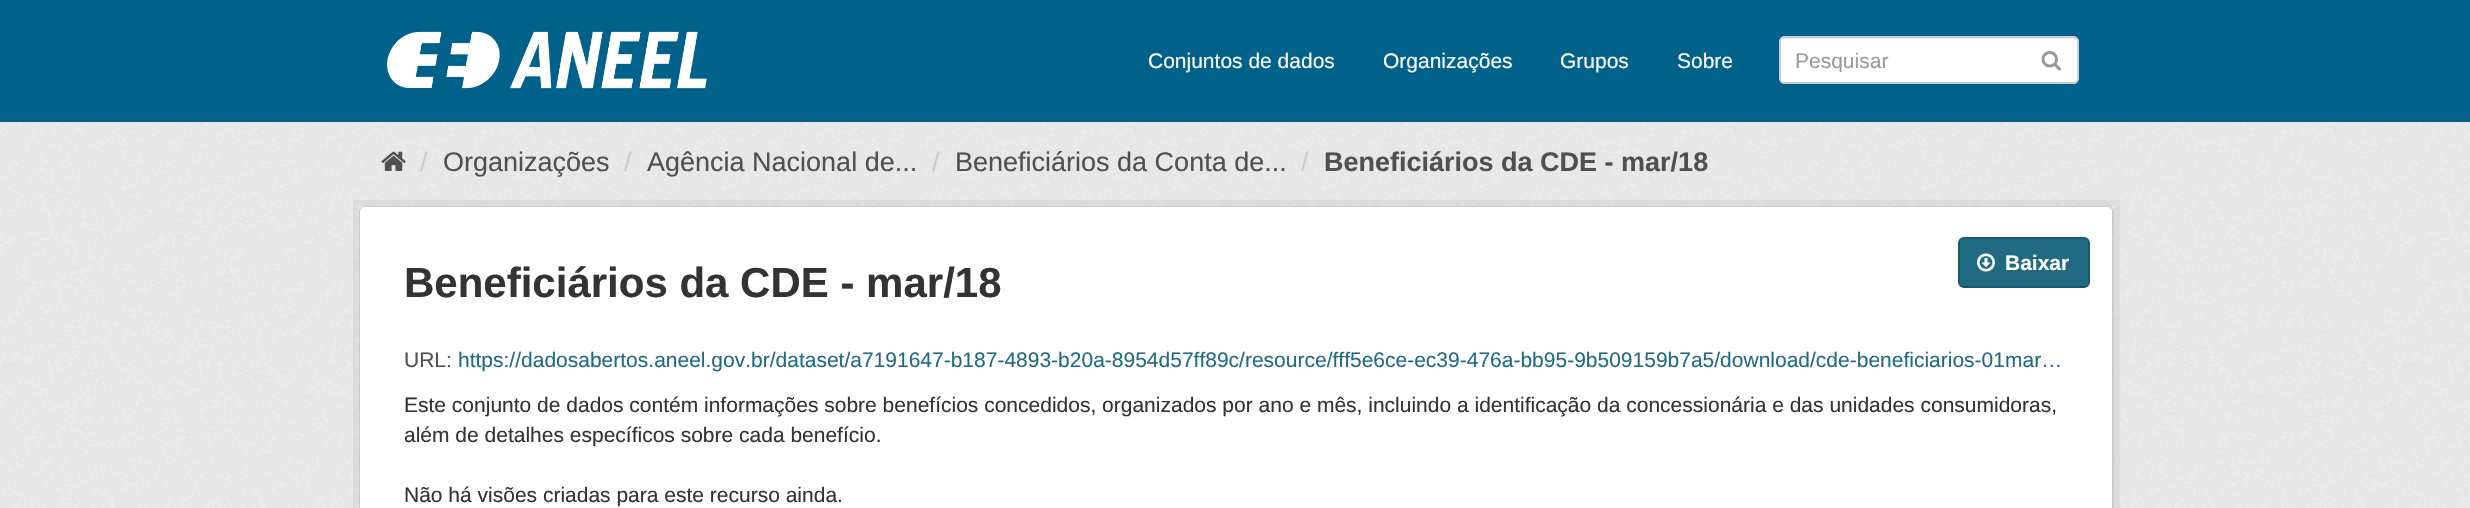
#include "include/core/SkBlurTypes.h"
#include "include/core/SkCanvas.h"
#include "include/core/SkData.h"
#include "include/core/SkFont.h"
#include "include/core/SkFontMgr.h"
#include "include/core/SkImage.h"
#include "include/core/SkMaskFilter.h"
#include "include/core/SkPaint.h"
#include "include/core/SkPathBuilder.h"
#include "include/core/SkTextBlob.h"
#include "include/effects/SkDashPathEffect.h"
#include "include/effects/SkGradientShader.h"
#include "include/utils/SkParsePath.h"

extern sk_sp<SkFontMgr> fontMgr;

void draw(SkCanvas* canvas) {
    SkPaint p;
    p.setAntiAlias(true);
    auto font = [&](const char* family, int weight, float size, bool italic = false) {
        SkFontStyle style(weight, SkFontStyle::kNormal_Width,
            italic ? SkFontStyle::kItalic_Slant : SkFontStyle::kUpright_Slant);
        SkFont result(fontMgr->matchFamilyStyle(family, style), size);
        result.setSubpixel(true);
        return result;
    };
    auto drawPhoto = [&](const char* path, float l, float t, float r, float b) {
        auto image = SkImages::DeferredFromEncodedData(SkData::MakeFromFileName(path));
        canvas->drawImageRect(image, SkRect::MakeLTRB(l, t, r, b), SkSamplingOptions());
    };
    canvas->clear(0xFF00628B);
    drawPhoto("media/1.png", 387, 31, 707, 89);
    auto font1 = font("Liberation Sans", 400, 21);
    p.setColor(0xFFFFFFFF);
    {
        const struct { const char* s; float x, y; } items[] = {
            {"Conjuntos de dados", 1148, 68},
            {"Organizações", 1383, 68},
            {"Grupos", 1560, 68},
            {"Sobre", 1677, 68},
        };
        for (auto [s, x, y] : items) {
            canvas->drawString(s, x, y, font1, p);
        }
    }
    canvas->drawRoundRect(SkRect::MakeLTRB(1779, 36, 2079, 84), 6, 6, p);
    p.setColor(0xFFECECEC);
    canvas->drawPath(SkPathBuilder().moveTo(1785, 39).lineTo(2074, 39).lineTo(2077, 41).lineTo(2078, 44).cubicTo(2078, 41, 2076, 38, 2073, 38).lineTo(1786, 38).lineTo(1784, 39).lineTo(1782, 40).close().detach(), p);
    p.setStyle(SkPaint::kStroke_Style);
    p.setStrokeWidth(2);
    p.setColor(0xFFCCCCCC);
    canvas->drawRoundRect(SkRect::MakeLTRB(1780, 37, 2078, 83), 5, 5, p);
    canvas->save();
    canvas->clipRect(SkRect::MakeLTRB(1796, 48, 2063, 72));
    p.setStyle(SkPaint::kFill_Style);
    p.setColor(0xFF999999);
    canvas->drawString("Pesquisar", 1795, 68, font1, p);
    canvas->restore();
    drawPhoto("media/2.png", 2041, 51, 2061, 71);
    p.setColor(0xFFEEEEEE);
    canvas->drawRect(SkRect::MakeLTRB(0, 122, 2470, 508), p);
    drawPhoto("media/3.png", 0, 122, 2470, 508);
    drawPhoto("media/4.png", 381, 151, 406, 171);
    auto font2 = font("Liberation Sans", 400, 27);
    p.setColor(0xFFCCCCCC);
    canvas->drawString("/", 420, 171, font2, p);
    p.setColor(0xFF505050);
    canvas->drawString("Organizações", 443, 171, font2, p);
    p.setColor(0xFFCCCCCC);
    canvas->drawString("/", 624, 171, font2, p);
    p.setColor(0xFF505050);
    canvas->drawString("Agência Nacional de...", 647, 171, font2, p);
    p.setColor(0xFFCCCCCC);
    canvas->drawString("/", 932, 171, font2, p);
    p.setColor(0xFF505050);
    canvas->drawString("Beneficiários da Conta de...", 955, 171, font2, p);
    p.setColor(0xFFCCCCCC);
    canvas->drawString("/", 1301, 171, font2, p);
    auto font3 = font("Liberation Sans", 700, 27);
    p.setColor(0xFF505050);
    canvas->drawString("Beneficiários da CDE - mar/18", 1324, 171, font3, p);
    p.setStyle(SkPaint::kStroke_Style);
    p.setStrokeWidth(6);
    p.setColor(0x0D000000);
    canvas->drawRect(SkRect::MakeLTRB(356, 203, 2117, 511), p);
    p.setStrokeWidth(2);
    p.setColor(0xFFCCCCCC);
    canvas->drawRoundRect(SkRect::MakeLTRB(360, 207, 2113, 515), 5, 5, p);
    p.setStyle(SkPaint::kFill_Style);
    p.setColor(0xFFFFFFFF);
    canvas->drawPath(SkPathBuilder().moveTo(365, 207).lineTo(2107, 207).cubicTo(2110, 207, 2112, 209, 2112, 212).lineTo(2112, 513).lineTo(360, 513).lineTo(360, 212).cubicTo(360, 209, 362, 207, 365, 207).close().detach(), p);
    p.setColor(0xFF206B82);
    canvas->drawRoundRect(SkRect::MakeLTRB(1959, 238, 2089, 287), 5, 5, p);
    p.setStyle(SkPaint::kStroke_Style);
    p.setColor(0xFF1B5A6E);
    canvas->drawRoundRect(SkRect::MakeLTRB(1959, 238, 2089, 287), 5, 5, p);
    drawPhoto("media/5.png", 1977, 253, 1995, 272);
    auto font4 = font("Liberation Sans", 700, 21);
    p.setStyle(SkPaint::kFill_Style);
    p.setColor(0xFFFFFFFF);
    canvas->drawString("Baixar", 2005, 270, font4, p);
    auto font5 = font("Liberation Sans", 700, 42);
    p.setColor(0xFF333333);
    canvas->drawString("Beneficiários da CDE - mar/18", 404, 297, font5, p);
    p.setColor(0xFF505050);
    canvas->drawString("URL:", 404, 367, font1, p);
    p.setColor(0xFF206B82);
    canvas->drawString("https://dadosabertos.aneel.gov.br/dataset/a7191647-b187-4893-b20a-8954d57ff89c/resource/fff5e6ce-ec39-476a-bb95-9b509159b7a5/download/cde-beneficiarios-01mar…", 458, 367, font1, p);
    p.setColor(0xFF333333);
    {
        const struct { const char* s; float x, y; } items[] = {
            {"Este conjunto de dados contém informações sobre benefícios concedidos, organizados por ano e mês, incluindo a identificação da concessionária e das unidades consumidoras,", 404, 412},
            {"além de detalhes específicos sobre cada benefício.", 404, 442},
            {"Não há visões criadas para este recurso ainda.", 404, 502},
        };
        for (auto [s, x, y] : items) {
            canvas->drawString(s, x, y, font1, p);
        }
    }
}
